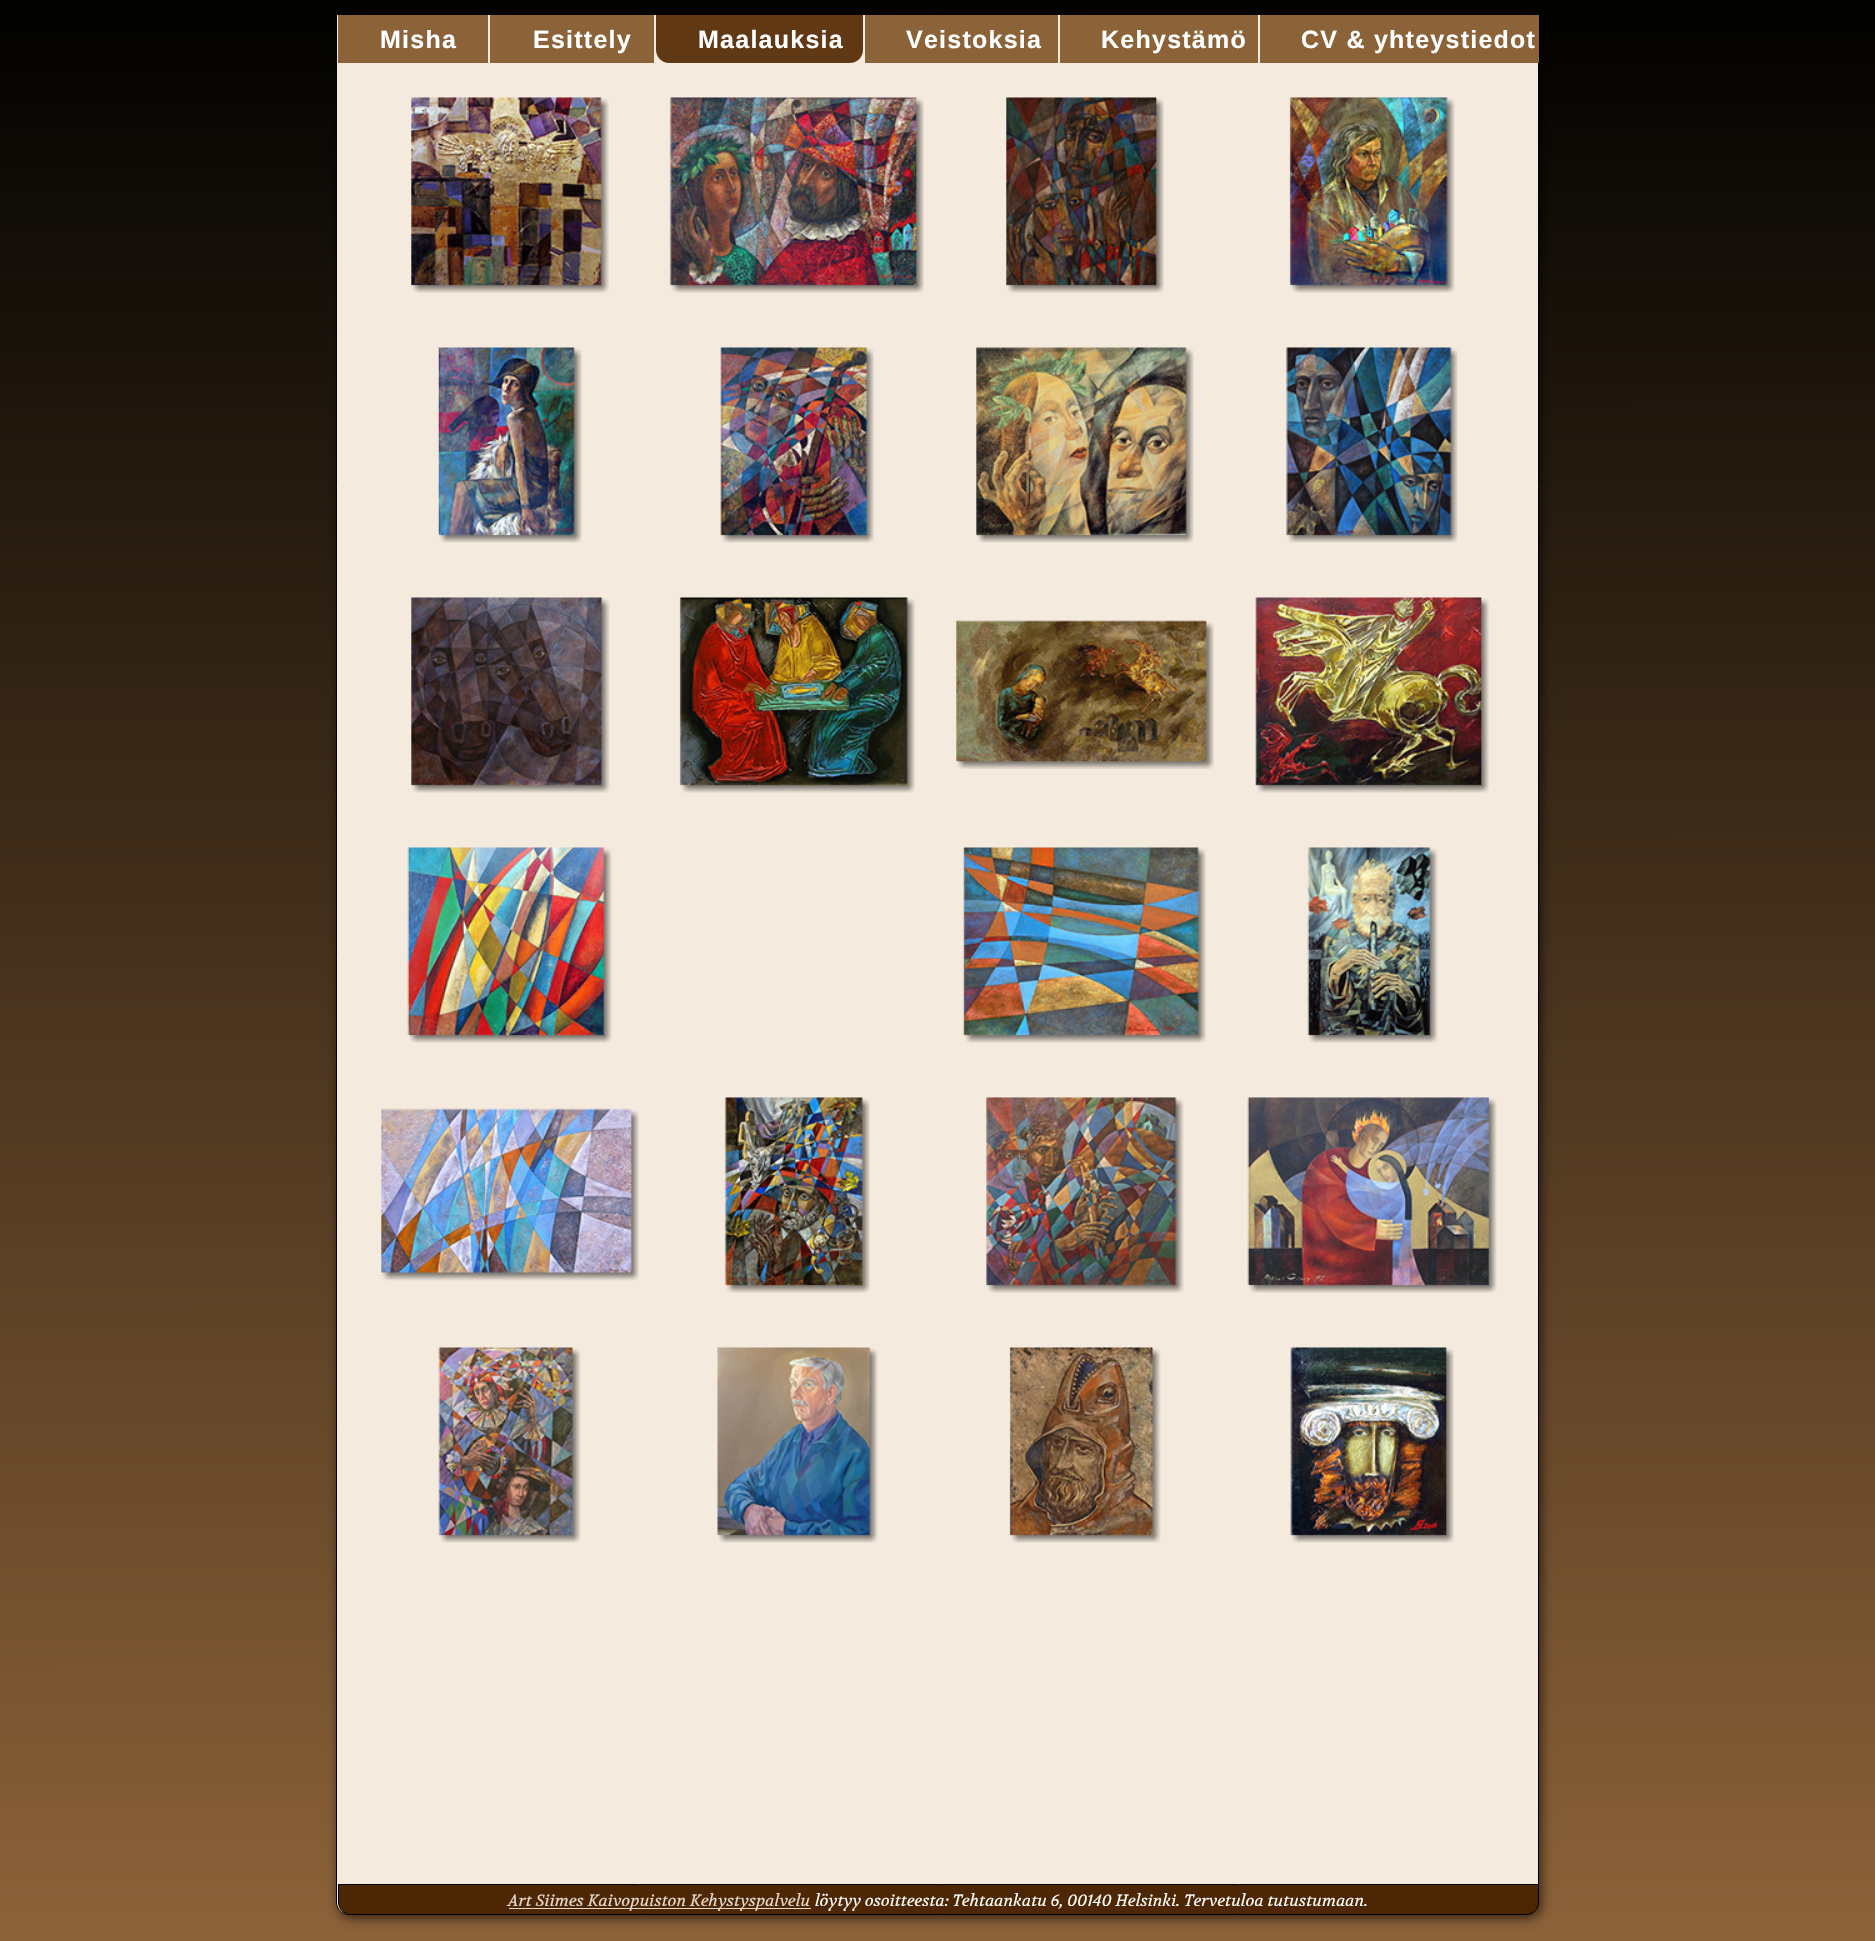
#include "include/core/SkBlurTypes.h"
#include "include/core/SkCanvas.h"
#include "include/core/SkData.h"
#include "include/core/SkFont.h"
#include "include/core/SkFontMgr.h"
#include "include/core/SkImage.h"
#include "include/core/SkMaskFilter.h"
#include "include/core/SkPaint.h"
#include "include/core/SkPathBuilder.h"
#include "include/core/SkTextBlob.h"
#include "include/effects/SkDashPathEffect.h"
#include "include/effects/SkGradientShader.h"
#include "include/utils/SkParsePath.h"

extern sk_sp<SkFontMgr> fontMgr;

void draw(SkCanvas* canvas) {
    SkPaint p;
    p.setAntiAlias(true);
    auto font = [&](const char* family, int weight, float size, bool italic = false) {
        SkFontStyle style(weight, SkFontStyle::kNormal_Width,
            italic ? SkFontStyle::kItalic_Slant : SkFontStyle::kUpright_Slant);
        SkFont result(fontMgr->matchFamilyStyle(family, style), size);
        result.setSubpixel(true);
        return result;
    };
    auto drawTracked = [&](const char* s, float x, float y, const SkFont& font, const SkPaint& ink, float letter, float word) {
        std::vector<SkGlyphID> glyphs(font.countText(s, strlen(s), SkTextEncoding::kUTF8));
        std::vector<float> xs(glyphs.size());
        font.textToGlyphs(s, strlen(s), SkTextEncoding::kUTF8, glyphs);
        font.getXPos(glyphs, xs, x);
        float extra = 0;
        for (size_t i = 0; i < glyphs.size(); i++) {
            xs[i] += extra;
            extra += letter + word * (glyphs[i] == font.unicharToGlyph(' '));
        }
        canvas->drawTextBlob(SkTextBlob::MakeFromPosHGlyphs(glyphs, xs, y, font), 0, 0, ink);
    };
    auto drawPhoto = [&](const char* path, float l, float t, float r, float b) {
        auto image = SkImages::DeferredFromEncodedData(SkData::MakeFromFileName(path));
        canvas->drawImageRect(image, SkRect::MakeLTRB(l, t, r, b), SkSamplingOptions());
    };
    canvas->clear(0xFFFFFFFF);
    {
        const SkColor colors[] = {0xFF020201, 0xFF8C6239};
        const float stops[] = {0, 1};
        const SkPoint ends[] = {{937, 0}, {938, 1941}};
        p.setShader(SkGradientShader::MakeLinear(ends, colors, stops, 2, SkTileMode::kClamp));
        p.setAlpha(255);
    }
    canvas->drawRect(SkRect::MakeLTRB(0, 0, 1875, 1941), p);
    p.setShader(nullptr);
    p.setColor(0xA1000000);
    p.setMaskFilter(SkMaskFilter::MakeBlur(kNormal_SkBlurStyle, 6));
    canvas->drawRoundRect(SkRect::MakeLTRB(339, 16, 1541, 1918), 13, 13, p);
    p.setMaskFilter(nullptr);
    p.setColor(0xFFF4EADE);
    canvas->drawPath(SkPathBuilder().moveTo(336.5f, 14.5f).lineTo(1538.5f, 14.5f).lineTo(1538.5f, 1902).cubicTo(1538.5f, 1909, 1533, 1914.5f, 1526, 1914.5f).lineTo(349, 1914.5f).cubicTo(342, 1914.5f, 336.5f, 1909, 336.5f, 1902).close().detach(), p);
    p.setStyle(SkPaint::kStroke_Style);
    p.setStrokeWidth(1);
    p.setColor(0xFF000000);
    canvas->drawPath(SkPathBuilder().moveTo(336.5f, 14.5f).lineTo(1538.5f, 14.5f).lineTo(1538.5f, 1902).cubicTo(1538.5f, 1909, 1533, 1914.5f, 1526, 1914.5f).lineTo(349, 1914.5f).cubicTo(342, 1914.5f, 336.5f, 1909, 336.5f, 1902).close().detach(), p);
    p.setStyle(SkPaint::kFill_Style);
    p.setColor(0xFF8C6239);
    canvas->drawRect(SkRect::MakeLTRB(338, 15, 488, 63), p);
    auto font1 = font("Liberation Sans", 700, 25);
    p.setColor(0xFFFFFFFF);
    drawTracked("Misha", 380, 48, font1, p, 1.25f, 0);
    p.setColor(0xFF8C6239);
    canvas->drawRect(SkRect::MakeLTRB(490, 15, 654, 63), p);
    p.setColor(0xFFFFFFFF);
    drawTracked("Esittely", 533, 48, font1, p, 1.25f, 0);
    p.setColor(0xFF603813);
    canvas->drawPath(SkPathBuilder().moveTo(656, 15).lineTo(863, 15).lineTo(863, 50).cubicTo(863, 57, 857, 63, 850, 63).lineTo(669, 63).cubicTo(662, 63, 656, 57, 656, 50).close().detach(), p);
    p.setColor(0xFFFFFFFF);
    drawTracked("Maalauksia", 698, 48, font1, p, 1.25f, 0);
    p.setColor(0xFF8C6239);
    canvas->drawRect(SkRect::MakeLTRB(865, 15, 1058, 63), p);
    p.setColor(0xFFFFFFFF);
    drawTracked("Veistoksia", 906, 48, font1, p, 1.25f, 0);
    p.setColor(0xFF8C6239);
    canvas->drawRect(SkRect::MakeLTRB(1060, 15, 1258, 63), p);
    p.setColor(0xFFFFFFFF);
    drawTracked("Kehystämö", 1101, 48, font1, p, 1.25f, 0);
    p.setColor(0xFF8C6239);
    canvas->drawRect(SkRect::MakeLTRB(1260, 15, 1539, 63), p);
    p.setColor(0xFFFFFFFF);
    drawTracked("CV & yhteystiedot", 1301, 48, font1, p, 1.25f, 0);
    drawPhoto("media/1.png", 411, 97, 609, 293);
    drawPhoto("media/2.png", 669, 97, 924, 293);
    drawPhoto("media/3.png", 1006, 97, 1164, 293);
    drawPhoto("media/4.png", 1289, 97, 1455, 293);
    drawPhoto("media/5.png", 438, 347, 582, 543);
    drawPhoto("media/6.png", 720, 347, 874, 543);
    drawPhoto("media/7.png", 976, 347, 1194, 543);
    drawPhoto("media/8.png", 1286, 347, 1458, 543);
    drawPhoto("media/9.png", 411, 597, 610, 793);
    drawPhoto("media/10.png", 679, 597, 915, 793);
    drawPhoto("media/11.png", 956, 620, 1214, 769);
    drawPhoto("media/12.png", 1255, 597, 1489, 793);
    drawPhoto("media/13.png", 407, 847, 612, 1043);
    drawPhoto("media/14.png", 963, 847, 1206, 1043);
    drawPhoto("media/15.png", 1307, 847, 1438, 1043);
    drawPhoto("media/16.png", 381, 1108, 639, 1281);
    drawPhoto("media/17.png", 724, 1097, 870, 1293);
    drawPhoto("media/18.png", 986, 1097, 1184, 1293);
    drawPhoto("media/19.png", 1247, 1097, 1497, 1293);
    drawPhoto("media/20.png", 438, 1347, 581, 1543);
    drawPhoto("media/21.png", 717, 1347, 878, 1543);
    drawPhoto("media/22.png", 1009, 1347, 1161, 1543);
    drawPhoto("media/23.png", 1290, 1347, 1454, 1543);
    p.setColor(0xFF4D2704);
    canvas->drawPath(SkPathBuilder().moveTo(338.5f, 1884.5f).lineTo(1538.5f, 1884.5f).lineTo(1538.5f, 1902).cubicTo(1538.5f, 1909, 1533, 1914.5f, 1526, 1914.5f).lineTo(351, 1914.5f).cubicTo(344, 1914.5f, 338.5f, 1909, 338.5f, 1902).close().detach(), p);
    p.setStyle(SkPaint::kStroke_Style);
    p.setColor(0xFF000000);
    canvas->drawPath(SkPathBuilder().moveTo(338.5f, 1884.5f).lineTo(1538.5f, 1884.5f).lineTo(1538.5f, 1902).cubicTo(1538.5f, 1909, 1533, 1914.5f, 1526, 1914.5f).lineTo(351, 1914.5f).cubicTo(344, 1914.5f, 338.5f, 1909, 338.5f, 1902).close().detach(), p);
    p.setStyle(SkPaint::kFill_Style);
    p.setColor(0xFFE4D9CC);
    canvas->drawRect(SkRect::MakeLTRB(509, 1908, 811, 1909), p);
    auto font2 = font("Volkhov", 400, 16.25f, true);
    canvas->drawString("Art Siimes Kaivopuiston Kehystyspalvelu", 508, 1906, font2, p);
    p.setColor(0xFFFFFFFF);
    canvas->drawString("löytyy osoitteesta: Tehtaankatu 6, 00140 Helsinki. Tervetuloa tutustumaan.", 815, 1906, font2, p);
}
